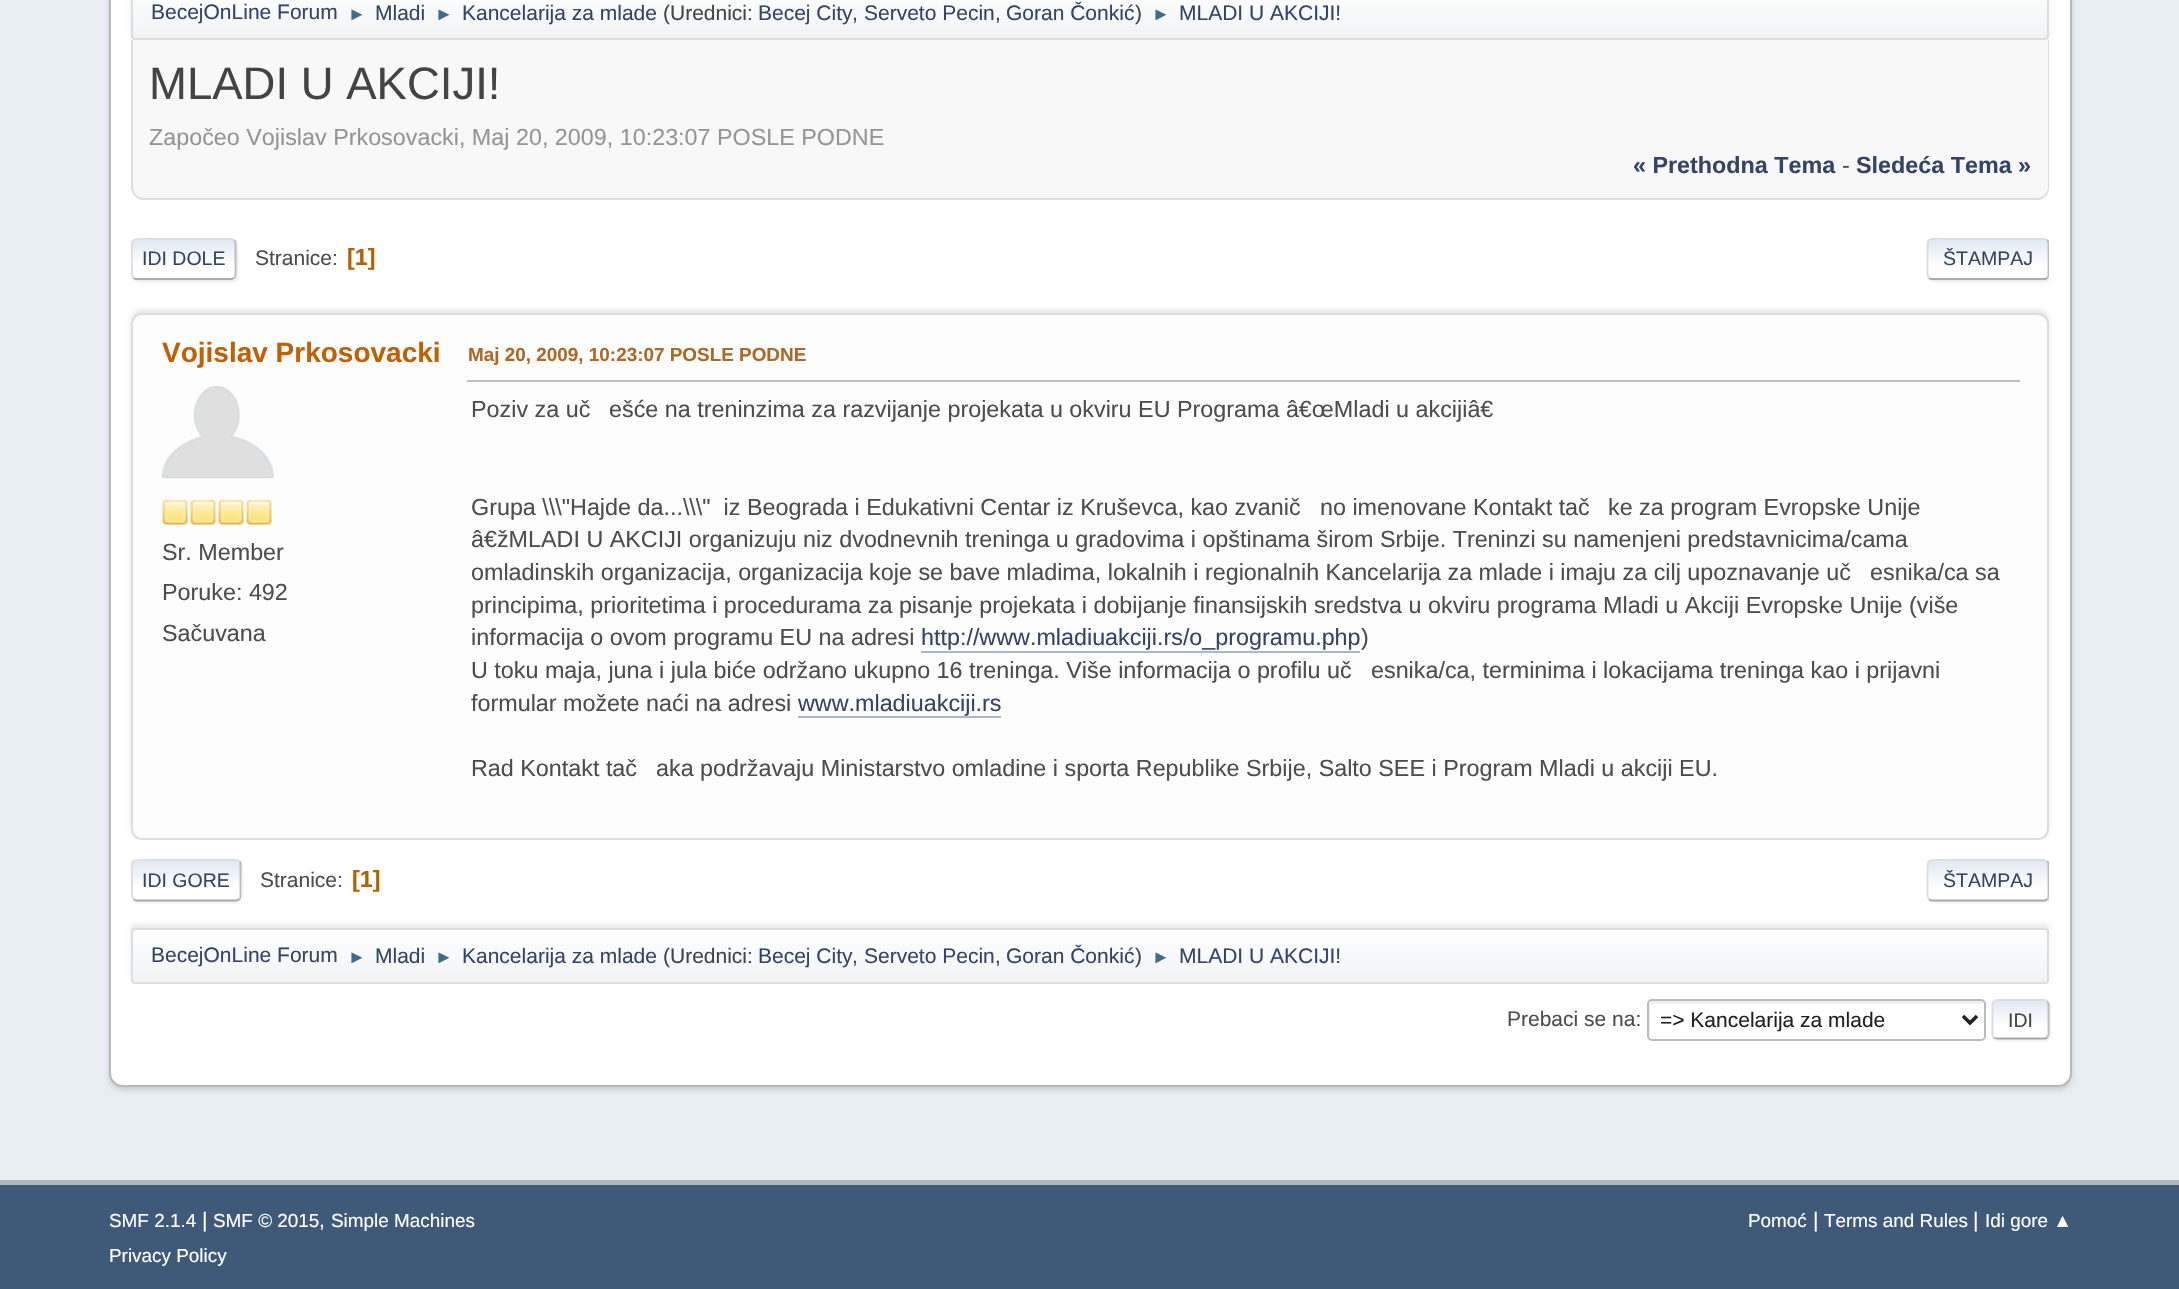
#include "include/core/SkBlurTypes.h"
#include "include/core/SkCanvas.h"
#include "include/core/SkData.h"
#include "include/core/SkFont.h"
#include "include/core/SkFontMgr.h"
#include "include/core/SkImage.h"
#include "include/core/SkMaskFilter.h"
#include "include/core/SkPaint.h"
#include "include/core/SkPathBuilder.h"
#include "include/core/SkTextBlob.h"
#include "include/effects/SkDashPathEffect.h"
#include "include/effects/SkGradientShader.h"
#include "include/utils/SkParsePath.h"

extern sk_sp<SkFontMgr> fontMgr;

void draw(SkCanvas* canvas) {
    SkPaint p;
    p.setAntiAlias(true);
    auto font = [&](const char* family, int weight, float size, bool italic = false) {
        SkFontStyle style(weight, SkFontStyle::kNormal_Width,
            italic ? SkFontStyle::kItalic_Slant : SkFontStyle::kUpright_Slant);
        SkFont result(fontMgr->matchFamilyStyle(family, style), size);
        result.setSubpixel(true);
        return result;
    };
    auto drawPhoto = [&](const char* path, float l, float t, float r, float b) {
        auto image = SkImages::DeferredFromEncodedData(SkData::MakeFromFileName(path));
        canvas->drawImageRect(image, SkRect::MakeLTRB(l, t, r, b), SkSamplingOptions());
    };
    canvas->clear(0xFFE9EEF2);
    p.setColor(0x24000000);
    p.setMaskFilter(SkMaskFilter::MakeBlur(kNormal_SkBlurStyle, 2.5f));
    canvas->drawRoundRect(SkRect::MakeLTRB(109, -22, 2072, 1090), 14, 14, p);
    p.setMaskFilter(nullptr);
    p.setColor(0xFFFFFFFF);
    canvas->drawRoundRect(SkRect::MakeLTRB(110, -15, 2071, 1086), 13, 13, p);
    p.setStyle(SkPaint::kStroke_Style);
    p.setStrokeWidth(2);
    p.setColor(0xFFB8B8B8);
    canvas->drawRoundRect(SkRect::MakeLTRB(110, -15, 2071, 1086), 13, 13, p);
    p.setStyle(SkPaint::kFill_Style);
    p.setColor(0x14000000);
    p.setMaskFilter(SkMaskFilter::MakeBlur(kNormal_SkBlurStyle, 2));
    canvas->drawRoundRect(SkRect::MakeLTRB(131, -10, 2049, 37), 4, 4, p);
    p.setMaskFilter(nullptr);
    canvas->save();
    canvas->clipPath(SkPathBuilder().moveTo(135, -14).lineTo(2045, -14).cubicTo(2047, -14, 2049, -12, 2049, -10).lineTo(2049, 36).cubicTo(2049, 38, 2047, 40, 2045, 40).lineTo(135, 40).cubicTo(133, 40, 131, 38, 131, 36).lineTo(131, -10).cubicTo(131, -12, 133, -14, 135, -14).close().detach(), true);
    {
        const SkColor colors[] = {0xFFFFFFFF, 0xFFF1F3F5};
        const float stops[] = {0, 0.95f};
        const SkPoint ends[] = {{1090, -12}, {1090, 39}};
        p.setShader(SkGradientShader::MakeLinear(ends, colors, stops, 2, SkTileMode::kClamp));
        p.setAlpha(255);
    }
    canvas->drawRect(SkRect::MakeLTRB(131, 0, 2049, 39), p);
    canvas->restore();
    p.setStyle(SkPaint::kStroke_Style);
    p.setShader(nullptr);
    p.setColor(0xFFDDDDDD);
    canvas->drawRoundRect(SkRect::MakeLTRB(132, -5, 2048, 39), 3, 3, p);
    auto font1 = font("Liberation Sans", 400, 21);
    p.setStyle(SkPaint::kFill_Style);
    p.setColor(0xFF334466);
    canvas->drawString("BecejOnLine Forum", 151, 19, font1, p);
    auto font2 = font("Liberation Sans", 400, 18);
    p.setColor(0xFF3F6B8C);
    canvas->drawString("►", 348, 20, font2, p);
    p.setColor(0xFF334466);
    canvas->drawString("Mladi", 375, 20, font1, p);
    p.setColor(0xFF3F6B8C);
    canvas->drawString("►", 435, 20, font2, p);
    p.setColor(0xFF334466);
    canvas->drawString("Kancelarija za mlade", 462, 20, font1, p);
    p.setColor(0xFF444444);
    canvas->drawString("(Urednici:", 663, 20, font1, p);
    p.setColor(0xFF334466);
    canvas->drawString("Becej City", 758, 20, font1, p);
    p.setColor(0xFF444444);
    canvas->drawString(",", 852, 20, font1, p);
    p.setColor(0xFF334466);
    canvas->drawString("Serveto Pecin", 864, 20, font1, p);
    p.setColor(0xFF444444);
    canvas->drawString(",", 995, 20, font1, p);
    p.setColor(0xFF334466);
    canvas->drawString("Goran Čonkić", 1006, 20, font1, p);
    p.setColor(0xFF444444);
    canvas->drawString(")", 1135, 20, font1, p);
    p.setColor(0xFF3F6B8C);
    canvas->drawString("►", 1152, 20, font2, p);
    p.setColor(0xFF334466);
    canvas->drawString("MLADI U AKCIJI!", 1179, 20, font1, p);
    p.setColor(0xFFF8F8F8);
    canvas->drawPath(SkPathBuilder().moveTo(131, 40).lineTo(2049, 40).lineTo(2049, 188).cubicTo(2049, 194.5f, 2043.5f, 200, 2037, 200).lineTo(143, 200).cubicTo(136.5f, 200, 131, 194.5f, 131, 188).close().detach(), p);
    p.setColor(0xFFDDDDDD);
    canvas->drawPath(SkPathBuilder(SkPathFillType::kEvenOdd).moveTo(131, 40).lineTo(2049, 40).lineTo(2049, 187).cubicTo(2049, 194, 2044, 200, 2037, 200).lineTo(144, 200).cubicTo(137, 200, 131, 194, 131, 187).close().moveTo(133, 40).lineTo(2048, 40).lineTo(2048, 187).cubicTo(2048, 193, 2043, 198, 2037, 198).lineTo(144, 198).cubicTo(138, 198, 133, 193, 133, 187).close().detach(), p);
    auto font3 = font("Liberation Sans", 400, 45.5f);
    p.setColor(0xFF444444);
    canvas->drawString("MLADI U AKCIJI!", 149, 99, font3, p);
    auto font4 = font("Liberation Sans", 400, 23.33f);
    p.setColor(0xFF959595);
    canvas->drawString("Započeo Vojislav Prkosovacki, Maj 20, 2009, 10:23:07 POSLE PODNE", 149, 145, font4, p);
    auto font5 = font("Liberation Sans", 700, 23.33f);
    p.setColor(0xFF334466);
    canvas->drawString("« Prethodna Tema", 1633, 173, font5, p);
    p.setColor(0xFF4D4D4D);
    canvas->drawString("-", 1842, 173, font4, p);
    p.setColor(0xFF334466);
    canvas->drawString("Sledeća Tema »", 1856, 173, font5, p);
    p.setColor(0x91DDDDDD);
    p.setMaskFilter(SkMaskFilter::MakeBlur(kNormal_SkBlurStyle, 1));
    canvas->drawRoundRect(SkRect::MakeLTRB(133, 240, 238, 282), 5, 5, p);
    p.setMaskFilter(nullptr);
    p.setColor(0xFFFFFFFF);
    canvas->drawRoundRect(SkRect::MakeLTRB(131, 238, 236, 280), 5, 5, p);
    canvas->save();
    canvas->clipPath(SkPathBuilder().moveTo(136, 238).lineTo(231, 238).cubicTo(234, 238, 236, 240, 236, 243).lineTo(236, 275).cubicTo(236, 278, 234, 280, 231, 280).lineTo(136, 280).cubicTo(133, 280, 131, 278, 131, 275).lineTo(131, 243).cubicTo(131, 240, 133, 238, 136, 238).close().detach(), true);
    {
        const SkColor colors[] = {0xFFE2E9F3, 0xFFFFFFFF};
        const float stops[] = {0, 0.7f};
        const SkPoint ends[] = {{184, 240}, {184, 278}};
        p.setShader(SkGradientShader::MakeLinear(ends, colors, stops, 2, SkTileMode::kClamp));
        p.setAlpha(255);
    }
    canvas->drawRect(SkRect::MakeLTRB(131, 240, 236, 278), p);
    {
        const SkColor colors[] = {0xFFE2E9F3, 0xFFFFFFFF};
        const float stops[] = {0, 0.7f};
        const SkPoint ends[] = {{184, 278}, {184, 317}};
        p.setShader(SkGradientShader::MakeLinear(ends, colors, stops, 2, SkTileMode::kClamp));
        p.setAlpha(255);
    }
    canvas->drawRect(SkRect::MakeLTRB(131, 278, 236, 280), p);
    canvas->restore();
    p.setStyle(SkPaint::kStroke_Style);
    p.setStrokeWidth(1.8f);
    p.setShader(nullptr);
    p.setColor(0xFFBBBBBB);
    canvas->drawPath(SkPathBuilder().moveTo(234, 240).cubicTo(235, 241, 235.5f, 242, 235.5f, 243).lineTo(235.5f, 275).cubicTo(235.5f, 276, 235, 277, 234, 278).detach(), p);
    p.setColor(0xFFAAAAAA);
    canvas->drawPath(SkPathBuilder().moveTo(234, 278).lineTo(231.5f, 279).lineTo(136, 279).lineTo(133.5f, 278).detach(), p);
    p.setColor(0xFFDDDDDD);
    canvas->drawPath(SkPathBuilder().moveTo(133.5f, 278).cubicTo(131.5f, 276, 132, 272, 132, 269.5f).lineTo(132, 259).cubicTo(132, 236, 128.5f, 239, 152, 239).lineTo(231, 239).lineTo(234, 240).detach(), p);
    auto font6 = font("Liberation Sans", 400, 19.5f);
    p.setStyle(SkPaint::kFill_Style);
    p.setColor(0xFF334466);
    canvas->drawString("IDI DOLE", 142, 265, font6, p);
    p.setColor(0xFF4D4D4D);
    canvas->drawString("Stranice:", 255, 265, font1, p);
    p.setColor(0xFFB46100);
    canvas->drawString("[1]", 347, 265, font5, p);
    canvas->save();
    canvas->clipRect(SkRect::MakeLTRB(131, 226, 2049, 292));
    p.setColor(0x91DDDDDD);
    p.setMaskFilter(SkMaskFilter::MakeBlur(kNormal_SkBlurStyle, 1));
    canvas->drawRoundRect(SkRect::MakeLTRB(1929, 240, 2051, 282), 5, 5, p);
    p.setMaskFilter(nullptr);
    canvas->restore();
    p.setColor(0xFFFFFFFF);
    canvas->drawRoundRect(SkRect::MakeLTRB(1927, 238, 2049, 280), 5, 5, p);
    canvas->save();
    canvas->clipPath(SkPathBuilder().moveTo(1932, 238).lineTo(2044, 238).cubicTo(2047, 238, 2049, 240, 2049, 243).lineTo(2049, 275).cubicTo(2049, 278, 2047, 280, 2044, 280).lineTo(1932, 280).cubicTo(1929, 280, 1927, 278, 1927, 275).lineTo(1927, 243).cubicTo(1927, 240, 1929, 238, 1932, 238).close().detach(), true);
    {
        const SkColor colors[] = {0xFFE2E9F3, 0xFFFFFFFF};
        const float stops[] = {0, 0.7f};
        const SkPoint ends[] = {{1988, 240}, {1988, 278}};
        p.setShader(SkGradientShader::MakeLinear(ends, colors, stops, 2, SkTileMode::kClamp));
        p.setAlpha(255);
    }
    canvas->drawRect(SkRect::MakeLTRB(1927, 240, 2049, 278), p);
    canvas->restore();
    canvas->save();
    canvas->clipRect(SkRect::MakeLTRB(131, 226, 2049, 292));
    p.setStyle(SkPaint::kStroke_Style);
    p.setShader(nullptr);
    p.setColor(0xFFBBBBBB);
    canvas->drawPath(SkPathBuilder().moveTo(2047, 240).cubicTo(2048, 241, 2048.5f, 242, 2048.5f, 243).lineTo(2048.5f, 275).cubicTo(2048.5f, 276, 2048, 277, 2047, 278).detach(), p);
    canvas->restore();
    p.setColor(0xFFAAAAAA);
    canvas->drawPath(SkPathBuilder().moveTo(2047, 278).cubicTo(2046.5f, 278.5f, 2045, 279, 2044, 279).lineTo(1932, 279).cubicTo(1931, 279, 1929.5f, 278.5f, 1929, 278).detach(), p);
    p.setColor(0xFFDDDDDD);
    canvas->drawPath(SkPathBuilder().moveTo(1929, 278).cubicTo(1927, 276, 1927.5f, 272, 1927.5f, 269.5f).lineTo(1927.5f, 259).cubicTo(1927.5f, 234.5f, 1924.5f, 239, 1950.5f, 239).lineTo(2044, 239).lineTo(2047, 240).detach(), p);
    p.setStyle(SkPaint::kFill_Style);
    p.setColor(0xFF334466);
    canvas->drawString("ŠTAMPAJ", 1943, 265, font6, p);
    p.setColor(0x1A000000);
    p.setMaskFilter(SkMaskFilter::MakeBlur(kNormal_SkBlurStyle, 2));
    canvas->drawRoundRect(SkRect::MakeLTRB(131, 310, 2049, 837), 11, 11, p);
    p.setMaskFilter(nullptr);
    p.setColor(0xFFFDFDFD);
    canvas->drawRoundRect(SkRect::MakeLTRB(132, 314, 2048, 839), 10, 10, p);
    p.setStyle(SkPaint::kStroke_Style);
    p.setStrokeWidth(2);
    p.setColor(0xFFDDDDDD);
    canvas->drawRoundRect(SkRect::MakeLTRB(132, 314, 2048, 839), 10, 10, p);
    auto font7 = font("Liberation Sans", 700, 28);
    p.setStyle(SkPaint::kFill_Style);
    p.setColor(0xFFC06002);
    canvas->drawString("Vojislav Prkosovacki", 162, 362, font7, p);
    drawPhoto("media/1.png", 162, 386, 274, 479);
    drawPhoto("media/2.png", 162, 499, 188, 525);
    drawPhoto("media/2.png", 190, 499, 216, 525);
    drawPhoto("media/2.png", 218, 499, 244, 525);
    drawPhoto("media/3.png", 246, 499, 272, 525);
    p.setColor(0xFF4D4D4D);
    {
        const struct { const char* s; float x, y; } items[] = {
            {"Sr. Member", 162, 560},
            {"Poruke: 492", 162, 600},
            {"Sačuvana", 162, 641},
        };
        for (auto [s, x, y] : items) {
            canvas->drawString(s, x, y, font4, p);
        }
    }
    auto font8 = font("Liberation Sans", 700, 18.9f);
    p.setColor(0xFFAD6825);
    canvas->drawString("Maj 20, 2009, 10:23:07 POSLE PODNE", 468, 361, font8, p);
    p.setColor(0xFFBFBFBF);
    canvas->drawRect(SkRect::MakeLTRB(467, 380, 2020, 382), p);
    p.setColor(0xFF4D4D4D);
    {
        const struct { const char* s; float x, y; } items[] = {
            {"Poziv za uč", 471, 417},
            {"ešće na treninzima za razvijanje projekata u okviru EU Programa â€œMladi u akcijiâ€", 609, 417},
            {"Grupa \\\\\\\"Hajde da...\\\\\\\"  iz Beograda i Edukativni Centar iz Kruševca, kao zvanič", 471, 515},
            {"no imenovane Kontakt tač", 1320, 515},
            {"ke za program Evropske Unije", 1608, 515},
            {"â€žMLADI U AKCIJI organizuju niz dvodnevnih treninga u gradovima i opštinama širom Srbije. Treninzi su namenjeni predstavnicima/cama", 471, 547},
            {"omladinskih organizacija, organizacija koje se bave mladima, lokalnih i regionalnih Kancelarija za mlade i imaju za cilj upoznavanje uč", 471, 580},
            {"esnika/ca sa", 1870, 580},
            {"principima, prioritetima i procedurama za pisanje projekata i dobijanje finansijskih sredstva u okviru programa Mladi u Akciji Evropske Unije (više", 471, 613},
            {"informacija o ovom programu EU na adresi", 471, 645},
        };
        for (auto [s, x, y] : items) {
            canvas->drawString(s, x, y, font4, p);
        }
    }
    p.setColor(0xFF334466);
    canvas->drawString("http://www.mladiuakciji.rs/o_programu.php", 921, 645, font4, p);
    p.setColor(0xFFA8B6CF);
    canvas->drawRect(SkRect::MakeLTRB(921, 651, 1360, 653), p);
    p.setColor(0xFF4D4D4D);
    {
        const struct { const char* s; float x, y; } items[] = {
            {")", 1361, 645},
            {"U toku maja, juna i jula biće održano ukupno 16 treninga. Više informacija o profilu uč", 471, 678},
            {"esnika/ca, terminima i lokacijama treninga kao i prijavni", 1371, 678},
            {"formular možete naći na adresi", 471, 711},
        };
        for (auto [s, x, y] : items) {
            canvas->drawString(s, x, y, font4, p);
        }
    }
    p.setColor(0xFF334466);
    canvas->drawString("www.mladiuakciji.rs", 798, 711, font4, p);
    p.setColor(0xFFA8B6CF);
    canvas->drawRect(SkRect::MakeLTRB(798, 716, 1001, 718), p);
    p.setColor(0xFF4D4D4D);
    canvas->drawString("Rad Kontakt tač", 471, 776, font4, p);
    canvas->drawString("aka podržavaju Ministarstvo omladine i sporta Republike Srbije, Salto SEE i Program Mladi u akciji EU.", 656, 776, font4, p);
    p.setColor(0x91DDDDDD);
    p.setMaskFilter(SkMaskFilter::MakeBlur(kNormal_SkBlurStyle, 1));
    canvas->drawRoundRect(SkRect::MakeLTRB(133, 861, 243, 903), 5, 5, p);
    p.setMaskFilter(nullptr);
    p.setColor(0xFFFFFFFF);
    canvas->drawRoundRect(SkRect::MakeLTRB(131, 859, 242, 901), 5, 5, p);
    canvas->save();
    canvas->clipPath(SkPathBuilder().moveTo(136, 859).lineTo(237, 859).cubicTo(240, 859, 242, 861, 242, 864).lineTo(242, 896).cubicTo(242, 899, 240, 901, 237, 901).lineTo(136, 901).cubicTo(133, 901, 131, 899, 131, 896).lineTo(131, 864).cubicTo(131, 861, 133, 859, 136, 859).close().detach(), true);
    {
        const SkColor colors[] = {0xFFE2E9F3, 0xFFFFFFFF};
        const float stops[] = {0, 0.7f};
        const SkPoint ends[] = {{186, 861}, {186, 900}};
        p.setShader(SkGradientShader::MakeLinear(ends, colors, stops, 2, SkTileMode::kClamp));
        p.setAlpha(255);
    }
    canvas->drawRect(SkRect::MakeLTRB(131, 861, 242, 900), p);
    {
        const SkColor colors[] = {0xFFE2E9F3, 0xFFFFFFFF};
        const float stops[] = {0, 0.7f};
        const SkPoint ends[] = {{186, 900}, {186, 938}};
        p.setShader(SkGradientShader::MakeLinear(ends, colors, stops, 2, SkTileMode::kClamp));
        p.setAlpha(255);
    }
    canvas->drawRect(SkRect::MakeLTRB(131, 900, 242, 901), p);
    canvas->restore();
    p.setStyle(SkPaint::kStroke_Style);
    p.setStrokeWidth(1.8f);
    p.setShader(nullptr);
    p.setColor(0xFFBBBBBB);
    canvas->drawPath(SkPathBuilder().moveTo(239.5f, 861.5f).cubicTo(240, 862, 240.5f, 863.5f, 240.5f, 864.5f).lineTo(240.5f, 896).cubicTo(240.5f, 897, 240, 898.5f, 239.5f, 899).detach(), p);
    p.setColor(0xFFAAAAAA);
    canvas->drawPath(SkPathBuilder().moveTo(239.5f, 899).lineTo(236.5f, 900.5f).lineTo(136, 900.5f).lineTo(133.5f, 899).detach(), p);
    p.setColor(0xFFDDDDDD);
    canvas->drawPath(SkPathBuilder().moveTo(133.5f, 899).cubicTo(131.5f, 897, 132, 893, 132, 891).lineTo(132, 880).cubicTo(132, 856.5f, 128.5f, 860, 153, 860).lineTo(236, 860).lineTo(239.5f, 861.5f).detach(), p);
    p.setStyle(SkPaint::kFill_Style);
    p.setColor(0xFF334466);
    canvas->drawString("IDI GORE", 142, 887, font6, p);
    p.setColor(0xFF4D4D4D);
    canvas->drawString("Stranice:", 260, 887, font1, p);
    p.setColor(0xFFB46100);
    canvas->drawString("[1]", 352, 887, font5, p);
    canvas->save();
    canvas->clipRect(SkRect::MakeLTRB(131, 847, 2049, 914));
    p.setColor(0x91DDDDDD);
    p.setMaskFilter(SkMaskFilter::MakeBlur(kNormal_SkBlurStyle, 1));
    canvas->drawRoundRect(SkRect::MakeLTRB(1929, 861, 2051, 903), 5, 5, p);
    p.setMaskFilter(nullptr);
    canvas->restore();
    p.setColor(0xFFFFFFFF);
    canvas->drawRoundRect(SkRect::MakeLTRB(1927, 859, 2049, 901), 5, 5, p);
    canvas->save();
    canvas->clipPath(SkPathBuilder().moveTo(1932, 859).lineTo(2044, 859).cubicTo(2047, 859, 2049, 861, 2049, 864).lineTo(2049, 896).cubicTo(2049, 899, 2047, 901, 2044, 901).lineTo(1932, 901).cubicTo(1929, 901, 1927, 899, 1927, 896).lineTo(1927, 864).cubicTo(1927, 861, 1929, 859, 1932, 859).close().detach(), true);
    {
        const SkColor colors[] = {0xFFE2E9F3, 0xFFFFFFFF};
        const float stops[] = {0, 0.7f};
        const SkPoint ends[] = {{1988, 861}, {1988, 900}};
        p.setShader(SkGradientShader::MakeLinear(ends, colors, stops, 2, SkTileMode::kClamp));
        p.setAlpha(255);
    }
    canvas->drawRect(SkRect::MakeLTRB(1927, 861, 2049, 900), p);
    canvas->restore();
    canvas->save();
    canvas->clipRect(SkRect::MakeLTRB(131, 847, 2049, 914));
    p.setStyle(SkPaint::kStroke_Style);
    p.setShader(nullptr);
    p.setColor(0xFFBBBBBB);
    canvas->drawPath(SkPathBuilder().moveTo(2047, 861.5f).cubicTo(2048, 862, 2048.5f, 863.5f, 2048.5f, 864.5f).lineTo(2048.5f, 896).cubicTo(2048.5f, 897, 2048, 898.5f, 2047, 899).detach(), p);
    canvas->restore();
    p.setColor(0xFFAAAAAA);
    canvas->drawPath(SkPathBuilder().moveTo(2047, 899).cubicTo(2046.5f, 900, 2045, 900.5f, 2044, 900.5f).lineTo(1932, 900.5f).cubicTo(1931, 900.5f, 1929.5f, 900, 1929, 899).detach(), p);
    p.setColor(0xFFDDDDDD);
    canvas->drawPath(SkPathBuilder().moveTo(1929, 899).cubicTo(1927, 897, 1927.5f, 893, 1927.5f, 891).lineTo(1927.5f, 880).cubicTo(1927.5f, 856, 1924.5f, 860, 1950.5f, 860).lineTo(2044, 860).lineTo(2047, 861.5f).detach(), p);
    p.setStyle(SkPaint::kFill_Style);
    p.setColor(0xFF334466);
    canvas->drawString("ŠTAMPAJ", 1943, 887, font6, p);
    p.setColor(0x14000000);
    p.setMaskFilter(SkMaskFilter::MakeBlur(kNormal_SkBlurStyle, 2));
    canvas->drawRoundRect(SkRect::MakeLTRB(131, 924, 2049, 980), 4, 4, p);
    p.setMaskFilter(nullptr);
    canvas->save();
    canvas->clipPath(SkPathBuilder().moveTo(135, 928).lineTo(2045, 928).cubicTo(2047, 928, 2049, 930, 2049, 932).lineTo(2049, 980).cubicTo(2049, 982, 2047, 984, 2045, 984).lineTo(135, 984).cubicTo(133, 984, 131, 982, 131, 980).lineTo(131, 932).cubicTo(131, 930, 133, 928, 135, 928).close().detach(), true);
    {
        const SkColor colors[] = {0xFFFFFFFF, 0xFFF1F3F5};
        const float stops[] = {0, 0.95f};
        const SkPoint ends[] = {{1090, 929}, {1090, 982}};
        p.setShader(SkGradientShader::MakeLinear(ends, colors, stops, 2, SkTileMode::kClamp));
        p.setAlpha(255);
    }
    canvas->drawRect(SkRect::MakeLTRB(131, 929, 2049, 982), p);
    canvas->restore();
    p.setStyle(SkPaint::kStroke_Style);
    p.setStrokeWidth(2);
    p.setShader(nullptr);
    p.setColor(0xFFDDDDDD);
    canvas->drawRoundRect(SkRect::MakeLTRB(132, 929, 2048, 983), 3, 3, p);
    p.setStyle(SkPaint::kFill_Style);
    p.setColor(0xFF334466);
    canvas->drawString("BecejOnLine Forum", 151, 962, font1, p);
    p.setColor(0xFF3F6B8C);
    canvas->drawString("►", 348, 963, font2, p);
    p.setColor(0xFF334466);
    canvas->drawString("Mladi", 375, 963, font1, p);
    p.setColor(0xFF3F6B8C);
    canvas->drawString("►", 435, 963, font2, p);
    p.setColor(0xFF334466);
    canvas->drawString("Kancelarija za mlade", 462, 963, font1, p);
    p.setColor(0xFF444444);
    canvas->drawString("(Urednici:", 663, 963, font1, p);
    p.setColor(0xFF334466);
    canvas->drawString("Becej City", 758, 963, font1, p);
    p.setColor(0xFF444444);
    canvas->drawString(",", 852, 963, font1, p);
    p.setColor(0xFF334466);
    canvas->drawString("Serveto Pecin", 864, 963, font1, p);
    p.setColor(0xFF444444);
    canvas->drawString(",", 995, 963, font1, p);
    p.setColor(0xFF334466);
    canvas->drawString("Goran Čonkić", 1006, 963, font1, p);
    p.setColor(0xFF444444);
    canvas->drawString(")", 1135, 963, font1, p);
    p.setColor(0xFF3F6B8C);
    canvas->drawString("►", 1152, 963, font2, p);
    p.setColor(0xFF334466);
    canvas->drawString("MLADI U AKCIJI!", 1179, 963, font1, p);
    p.setColor(0xFF4D4D4D);
    canvas->drawString("Prebaci se na:", 1507, 1026, font1, p);
    p.setColor(0xFFECF1F8);
    canvas->drawPath(SkPathBuilder().moveTo(1654, 1004).lineTo(1983, 1004).lineTo(1985, 1005).cubicTo(1985, 1003, 1983, 1001, 1981, 1001).lineTo(1653, 1001).cubicTo(1651, 1001, 1649, 1003, 1649, 1005).lineTo(1649, 1036).cubicTo(1649, 1037, 1649, 1038, 1650, 1039).lineTo(1650, 1008).cubicTo(1650, 1006, 1652, 1004, 1654, 1004).close().detach(), p);
    p.setStyle(SkPaint::kStroke_Style);
    p.setColor(0xFFBBBBBB);
    canvas->drawRoundRect(SkRect::MakeLTRB(1648, 1000, 1985, 1040), 4, 4, p);
    p.setStrokeWidth(3.5f);
    p.setColor(0xFF222222);
    canvas->drawPath(SkPathBuilder().moveTo(1963, 1016).lineTo(1970, 1023).lineTo(1977, 1016).detach(), p);
    p.setStyle(SkPaint::kFill_Style);
    canvas->drawString("=> Kancelarija za mlade", 1660, 1027, font1, p);
    p.setColor(0x91DDDDDD);
    p.setMaskFilter(SkMaskFilter::MakeBlur(kNormal_SkBlurStyle, 1));
    canvas->drawRoundRect(SkRect::MakeLTRB(1993, 1001, 2051, 1041), 5, 5, p);
    p.setMaskFilter(nullptr);
    p.setColor(0xFFFFFFFF);
    canvas->drawRoundRect(SkRect::MakeLTRB(1992, 999, 2049, 1040), 5, 5, p);
    canvas->save();
    canvas->clipPath(SkPathBuilder().moveTo(1997, 999).lineTo(2044, 999).cubicTo(2047, 999, 2049, 1001, 2049, 1004).lineTo(2049, 1035).cubicTo(2049, 1038, 2047, 1040, 2044, 1040).lineTo(1997, 1040).cubicTo(1994, 1040, 1992, 1038, 1992, 1035).lineTo(1992, 1004).cubicTo(1992, 1001, 1994, 999, 1997, 999).close().detach(), true);
    {
        const SkColor colors[] = {0xFFE2E9F3, 0xFFFFFFFF};
        const float stops[] = {0, 0.7f};
        const SkPoint ends[] = {{2020, 1001}, {2020, 1038}};
        p.setShader(SkGradientShader::MakeLinear(ends, colors, stops, 2, SkTileMode::kClamp));
        p.setAlpha(255);
    }
    canvas->drawRect(SkRect::MakeLTRB(1992, 1001, 2049, 1038), p);
    {
        const SkColor colors[] = {0xFFE2E9F3, 0xFFFFFFFF};
        const float stops[] = {0, 0.7f};
        const SkPoint ends[] = {{2020, 1038}, {2020, 1075}};
        p.setShader(SkGradientShader::MakeLinear(ends, colors, stops, 2, SkTileMode::kClamp));
        p.setAlpha(255);
    }
    canvas->drawRect(SkRect::MakeLTRB(1992, 1038, 2049, 1040), p);
    canvas->restore();
    p.setStyle(SkPaint::kStroke_Style);
    p.setStrokeWidth(1.8f);
    p.setShader(nullptr);
    p.setColor(0xFFBBBBBB);
    canvas->drawPath(SkPathBuilder().moveTo(2047, 1001.5f).cubicTo(2048, 1002, 2048.5f, 1003.5f, 2048.5f, 1004.5f).lineTo(2048.5f, 1034).cubicTo(2048.5f, 1035.5f, 2048, 1036.5f, 2047, 1037.5f).detach(), p);
    p.setColor(0xFFAAAAAA);
    canvas->drawPath(SkPathBuilder().moveTo(2047, 1037.5f).cubicTo(2046.5f, 1038, 2045, 1038.5f, 2044, 1038.5f).lineTo(1997, 1038.5f).cubicTo(1995.5f, 1038.5f, 1994.5f, 1038, 1993.5f, 1037.5f).detach(), p);
    p.setColor(0xFFDDDDDD);
    canvas->drawPath(SkPathBuilder().moveTo(1993.5f, 1037.5f).cubicTo(1993, 1036.5f, 1992.5f, 1035.5f, 1992.5f, 1034).lineTo(1992.5f, 1004.5f).cubicTo(1992.5f, 1003.5f, 1993, 1002, 1993.5f, 1001.5f).cubicTo(1994.5f, 1000.5f, 1995.5f, 1000, 1997, 1000).lineTo(2044, 1000).cubicTo(2045, 1000, 2046.5f, 1000.5f, 2047, 1001.5f).detach(), p);
    p.setStyle(SkPaint::kFill_Style);
    p.setColor(0xFF444444);
    canvas->drawString("IDI", 2008, 1027, font6, p);
    p.setColor(0xFF3E5A78);
    canvas->drawRect(SkRect::MakeLTRB(0, 1185, 2179, 1289), p);
    p.setColor(0xFFB2B6BD);
    canvas->drawRect(SkRect::MakeLTRB(0, 1180, 2179, 1185), p);
    auto font9 = font("Liberation Sans", 400, 18.9f);
    p.setColor(0xFFFFFFFF);
    canvas->drawString("SMF 2.1.4", 109, 1227, font9, p);
    canvas->drawString("|", 202, 1227, font1, p);
    canvas->drawString("SMF © 2015", 213, 1227, font9, p);
    canvas->drawString(",", 319, 1227, font1, p);
    {
        const struct { const char* s; float x, y; } items[] = {
            {"Simple Machines", 331, 1227},
            {"Privacy Policy", 109, 1262},
            {"Pomoć", 1748, 1227},
        };
        for (auto [s, x, y] : items) {
            canvas->drawString(s, x, y, font9, p);
        }
    }
    canvas->drawString("|", 1813, 1227, font1, p);
    canvas->drawString("Terms and Rules", 1824, 1227, font9, p);
    canvas->drawString("|", 1973, 1227, font1, p);
    canvas->drawString("Idi gore ▲", 1985, 1227, font9, p);
}
